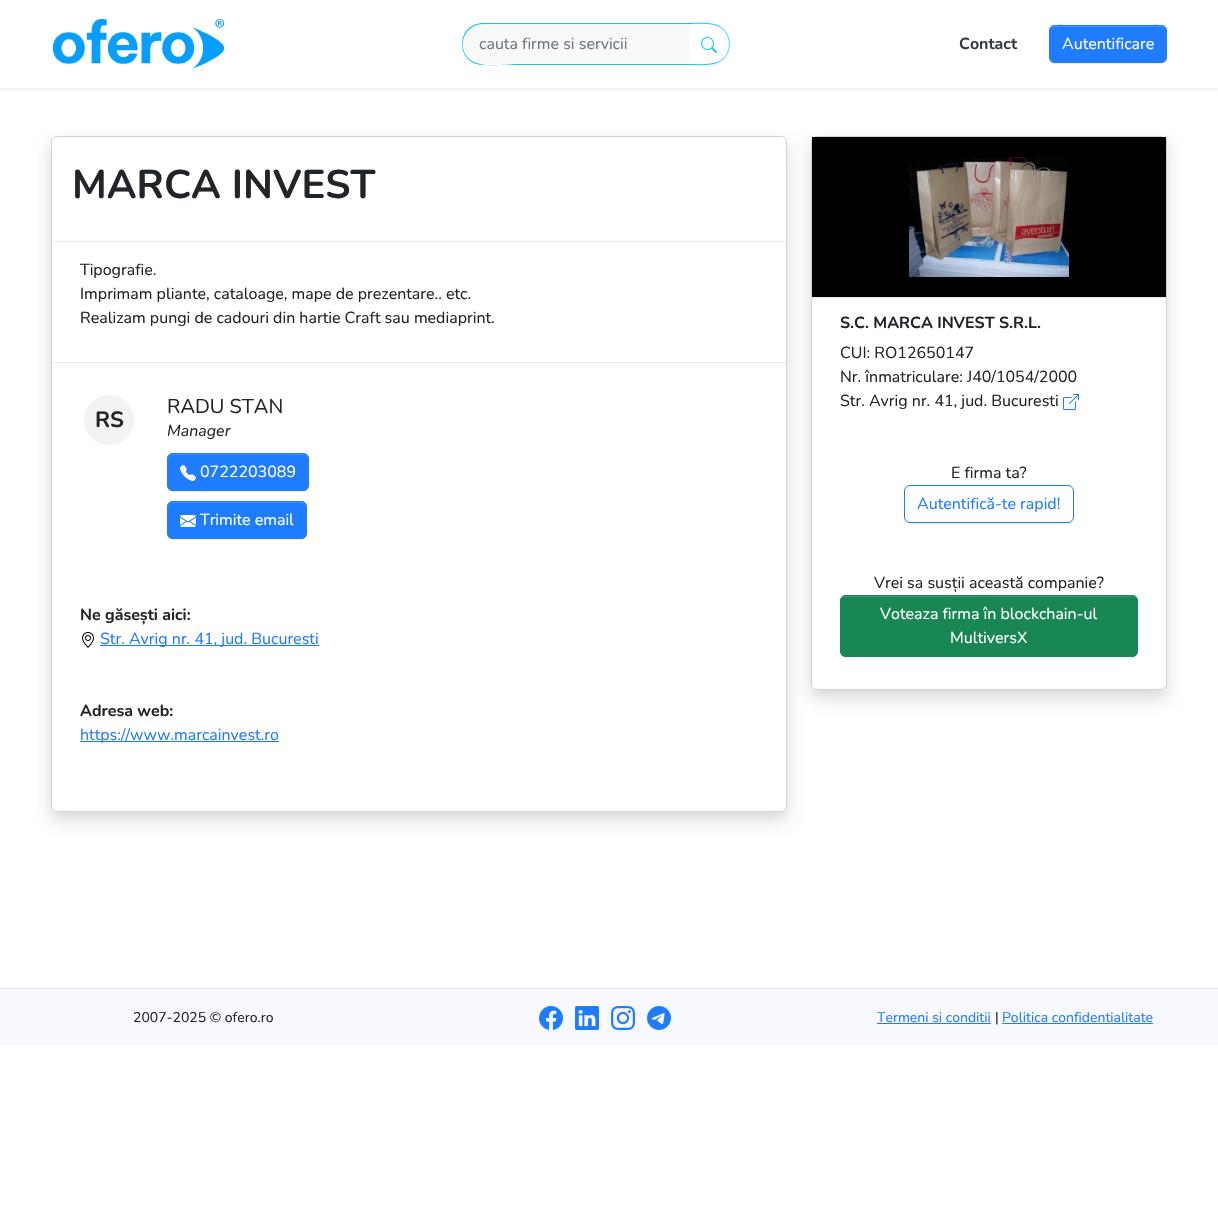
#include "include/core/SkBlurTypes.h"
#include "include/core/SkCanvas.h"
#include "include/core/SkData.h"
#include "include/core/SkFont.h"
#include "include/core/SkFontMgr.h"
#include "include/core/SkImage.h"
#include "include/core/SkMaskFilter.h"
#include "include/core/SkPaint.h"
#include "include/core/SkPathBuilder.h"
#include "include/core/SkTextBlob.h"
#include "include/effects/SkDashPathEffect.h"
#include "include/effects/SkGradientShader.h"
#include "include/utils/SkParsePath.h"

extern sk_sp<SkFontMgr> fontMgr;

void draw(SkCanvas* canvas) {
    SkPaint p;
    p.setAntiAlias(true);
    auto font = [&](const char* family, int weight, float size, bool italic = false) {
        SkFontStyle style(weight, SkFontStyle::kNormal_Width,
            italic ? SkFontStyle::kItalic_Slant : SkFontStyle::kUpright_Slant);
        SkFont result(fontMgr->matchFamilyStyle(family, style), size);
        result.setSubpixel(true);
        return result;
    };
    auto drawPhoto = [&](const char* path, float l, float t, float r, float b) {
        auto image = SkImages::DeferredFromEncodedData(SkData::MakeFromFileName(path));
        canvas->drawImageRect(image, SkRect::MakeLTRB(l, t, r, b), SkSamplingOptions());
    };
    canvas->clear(0xFFFFFFFF);
    canvas->save();
    canvas->clipRect(SkRect::MakeLTRB(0, 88, 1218, 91));
    p.setColor(0x12000000);
    p.setMaskFilter(SkMaskFilter::MakeBlur(kNormal_SkBlurStyle, 2));
    canvas->drawRect(SkRect::MakeLTRB(0, 2, 1218, 90), p);
    p.setMaskFilter(nullptr);
    canvas->restore();
    drawPhoto("media/1.png", 52, 19, 225, 69);
    p.setColor(0xFFF9F9F9);
    canvas->drawPath(SkPathBuilder().moveTo(483, 24).lineTo(690, 24).lineTo(690, 64).lineTo(483, 64).cubicTo(472, 64, 463, 55, 463, 44).cubicTo(463, 33, 472, 24, 483, 24).close().detach(), p);
    p.setColor(0xFF0DCAF0);
    canvas->drawPath(SkPathBuilder(SkPathFillType::kEvenOdd).moveTo(483, 23).lineTo(690, 23).lineTo(690, 65).lineTo(483, 65).cubicTo(471, 65, 462, 56, 462, 44).cubicTo(462, 32, 471, 23, 483, 23).close().moveTo(483, 24).lineTo(690, 24).lineTo(690, 64).lineTo(517, 64).cubicTo(503, 64, 468, 72, 463, 48).cubicTo(461, 36, 470, 24, 483, 24).close().detach(), p);
    auto font1 = font("Nunito", 400, 16);
    p.setColor(0xFF6C757D);
    canvas->drawString("cauta firme si servicii", 479, 49, font1, p);
    canvas->save();
    canvas->clipPath(SkPathBuilder(SkPathFillType::kEvenOdd).moveTo(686, 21).lineTo(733, 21).lineTo(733, 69).lineTo(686, 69).close().moveTo(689, 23).lineTo(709, 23).cubicTo(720.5f, 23, 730, 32.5f, 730, 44).cubicTo(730, 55.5f, 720.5f, 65, 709, 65).lineTo(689, 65).close().detach(), true);
    p.setColor(0x12000000);
    p.setMaskFilter(SkMaskFilter::MakeBlur(kNormal_SkBlurStyle, 0.5f));
    canvas->drawRoundRect(SkRect::MakeLTRB(689, 24, 730, 66), 21, 21, p);
    p.setMaskFilter(nullptr);
    canvas->restore();
    p.setColor(0xFF0DCAF0);
    canvas->drawPath(SkPathBuilder(SkPathFillType::kEvenOdd).moveTo(689, 23).cubicTo(697, 23, 710, 22, 717, 25).cubicTo(734, 32, 734, 56, 717, 63).cubicTo(710, 66, 697, 65, 689, 65).close().moveTo(689, 24).cubicTo(697, 24, 710, 23, 717, 26).cubicTo(733, 32, 733, 56, 717, 62).cubicTo(710, 65, 697, 64, 689, 64).close().detach(), p);
    drawPhoto("media/2.png", 701, 37, 717, 53);
    auto font2 = font("Nunito", 700, 16);
    p.setColor(0xFF343A40);
    canvas->drawString("Contact", 959, 49, font2, p);
    p.setColor(0x12000000);
    p.setMaskFilter(SkMaskFilter::MakeBlur(kNormal_SkBlurStyle, 0.5f));
    canvas->drawRoundRect(SkRect::MakeLTRB(1049, 26, 1167, 64), 6, 6, p);
    p.setMaskFilter(nullptr);
    p.setColor(0xFF1F7CFF);
    canvas->drawRoundRect(SkRect::MakeLTRB(1049, 25, 1167, 63), 6, 6, p);
    p.setColor(0xFF4190FF);
    canvas->drawPath(SkPathBuilder().moveTo(1055, 27).lineTo(1161, 27).cubicTo(1164, 27, 1166, 29, 1166, 32).cubicTo(1166, 21, 1148, 26, 1143, 26).lineTo(1073, 26).cubicTo(1068, 26, 1050, 21, 1050, 32).cubicTo(1050, 29, 1052, 27, 1055, 27).close().detach(), p);
    p.setStyle(SkPaint::kStroke_Style);
    p.setStrokeWidth(1);
    p.setColor(0xFF1F7CFF);
    canvas->drawRoundRect(SkRect::MakeLTRB(1049.5f, 25.5f, 1166.5f, 62.5f), 5.5f, 5.5f, p);
    p.setStyle(SkPaint::kFill_Style);
    p.setColor(0xFFFFFFFF);
    canvas->drawString("Autentificare", 1062, 49, font1, p);
    p.setColor(0x26000000);
    p.setMaskFilter(SkMaskFilter::MakeBlur(kNormal_SkBlurStyle, 8));
    canvas->drawRoundRect(SkRect::MakeLTRB(51, 144, 787, 820), 6, 6, p);
    p.setMaskFilter(nullptr);
    p.setColor(0xFFFFFFFF);
    canvas->drawRoundRect(SkRect::MakeLTRB(51.5f, 136.5f, 786.5f, 811.5f), 5.5f, 5.5f, p);
    p.setStyle(SkPaint::kStroke_Style);
    p.setColor(0xFFD2D2D2);
    canvas->drawRoundRect(SkRect::MakeLTRB(51.5f, 136.5f, 786.5f, 811.5f), 5.5f, 5.5f, p);
    auto font3 = font("Nunito", 700, 40);
    p.setStyle(SkPaint::kFill_Style);
    p.setColor(0xFF212529);
    canvas->drawString("MARCA INVEST", 72, 198, font3, p);
    p.setColor(0xFFEAE9F2);
    canvas->drawRect(SkRect::MakeLTRB(52, 241, 786, 242), p);
    p.setColor(0xFF212529);
    {
        const struct { const char* s; float x, y; } items[] = {
            {"Tipografie.", 80, 275},
            {"Imprimam pliante, cataloage, mape de prezentare.. etc.", 80, 299},
            {"Realizam pungi de cadouri din hartie Craft sau mediaprint.", 80, 323},
        };
        for (auto [s, x, y] : items) {
            canvas->drawString(s, x, y, font1, p);
        }
    }
    p.setColor(0xFFEAE9F2);
    canvas->drawRect(SkRect::MakeLTRB(52, 362, 786, 363), p);
    p.setColor(0xFFF3F3F3);
    canvas->drawCircle(109, 420, 25, p);
    auto font4 = font("Nunito", 700, 22);
    p.setColor(0xFF212529);
    canvas->drawString("RS", 95, 427, font4, p);
    auto font5 = font("Nunito", 400, 20);
    canvas->drawString("RADU STAN", 167, 413, font5, p);
    auto font6 = font("Nunito", 400, 16, true);
    canvas->drawString("Manager", 167, 436, font6, p);
    p.setColor(0x12000000);
    p.setMaskFilter(SkMaskFilter::MakeBlur(kNormal_SkBlurStyle, 0.5f));
    canvas->drawRoundRect(SkRect::MakeLTRB(167, 454, 309, 492), 6, 6, p);
    p.setMaskFilter(nullptr);
    p.setColor(0xFF1F7CFF);
    canvas->drawRoundRect(SkRect::MakeLTRB(167, 453, 309, 491), 6, 6, p);
    p.setColor(0xFF4190FF);
    canvas->drawPath(SkPathBuilder().moveTo(173, 455).lineTo(303, 455).cubicTo(306, 455, 308, 457, 308, 460).lineTo(308, 459).cubicTo(308, 456, 306, 454, 303, 454).lineTo(173, 454).cubicTo(170, 454, 168, 456, 168, 459).lineTo(168, 460).cubicTo(168, 457, 170, 455, 173, 455).close().detach(), p);
    p.setStyle(SkPaint::kStroke_Style);
    p.setColor(0xFF1F7CFF);
    canvas->drawRoundRect(SkRect::MakeLTRB(167.5f, 453.5f, 308.5f, 490.5f), 5.5f, 5.5f, p);
    drawPhoto("media/3.png", 180, 465, 196, 481);
    p.setStyle(SkPaint::kFill_Style);
    p.setColor(0xFFFFFFFF);
    canvas->drawString("0722203089", 200, 477, font1, p);
    p.setColor(0x12000000);
    p.setMaskFilter(SkMaskFilter::MakeBlur(kNormal_SkBlurStyle, 0.5f));
    canvas->drawRoundRect(SkRect::MakeLTRB(167, 502, 307, 540), 6, 6, p);
    p.setMaskFilter(nullptr);
    p.setColor(0xFF1F7CFF);
    canvas->drawRoundRect(SkRect::MakeLTRB(167, 501, 307, 539), 6, 6, p);
    p.setColor(0xFF4190FF);
    canvas->drawPath(SkPathBuilder().moveTo(173, 503).lineTo(301, 503).cubicTo(304, 503, 306, 505, 306, 508).lineTo(306, 507).cubicTo(306, 504, 304, 502, 301, 502).lineTo(173, 502).cubicTo(170, 502, 168, 504, 168, 507).lineTo(168, 508).cubicTo(168, 505, 170, 503, 173, 503).close().detach(), p);
    p.setStyle(SkPaint::kStroke_Style);
    p.setColor(0xFF1F7CFF);
    canvas->drawRoundRect(SkRect::MakeLTRB(167.5f, 501.5f, 306.5f, 538.5f), 5.5f, 5.5f, p);
    drawPhoto("media/4.png", 180, 515, 196, 527);
    p.setStyle(SkPaint::kFill_Style);
    p.setColor(0xFFFFFFFF);
    canvas->drawString("Trimite email", 200, 525, font1, p);
    p.setColor(0xFF212529);
    canvas->drawString("Ne găsești aici:", 80, 620, font2, p);
    drawPhoto("media/5.png", 82, 632, 94, 648);
    p.setColor(0xFF1F7CFF);
    canvas->drawRect(SkRect::MakeLTRB(100, 645, 319, 646), p);
    canvas->drawString("Str. Avrig nr. 41, jud. Bucuresti", 100, 644, font1, p);
    p.setColor(0xFF212529);
    canvas->drawString("Adresa web:", 80, 716, font2, p);
    p.setColor(0xFF1F7CFF);
    canvas->drawRect(SkRect::MakeLTRB(80, 741, 279, 742), p);
    canvas->drawString("https://www.marcainvest.ro", 80, 740, font1, p);
    p.setColor(0x26000000);
    p.setMaskFilter(SkMaskFilter::MakeBlur(kNormal_SkBlurStyle, 8));
    canvas->drawRoundRect(SkRect::MakeLTRB(811, 144, 1167, 698), 6, 6, p);
    p.setMaskFilter(nullptr);
    p.setColor(0xFFFFFFFF);
    canvas->drawRoundRect(SkRect::MakeLTRB(811.5f, 136.5f, 1166.5f, 689.5f), 5.5f, 5.5f, p);
    p.setStyle(SkPaint::kStroke_Style);
    p.setColor(0xFFD2D2D2);
    canvas->drawRoundRect(SkRect::MakeLTRB(811.5f, 136.5f, 1166.5f, 689.5f), 5.5f, 5.5f, p);
    p.setStyle(SkPaint::kFill_Style);
    p.setColor(0xFF010101);
    canvas->drawRect(SkRect::MakeLTRB(812, 137, 1166, 297), p);
    drawPhoto("media/6.png", 909, 157, 1069, 277);
    p.setColor(0xFFEAE9F2);
    canvas->drawRect(SkRect::MakeLTRB(812, 297, 1166, 298), p);
    p.setColor(0xFF212529);
    canvas->drawString("S.C. MARCA INVEST S.R.L.", 840, 328, font2, p);
    {
        const struct { const char* s; float x, y; } items[] = {
            {"CUI: RO12650147", 840, 358},
            {"Nr. înmatriculare: J40/1054/2000", 840, 382},
            {"Str. Avrig nr. 41, jud. Bucuresti", 840, 406},
        };
        for (auto [s, x, y] : items) {
            canvas->drawString(s, x, y, font1, p);
        }
    }
    drawPhoto("media/7.png", 1063, 394, 1079, 410);
    canvas->drawString("E firma ta?", 951, 478, font1, p);
    canvas->save();
    canvas->clipPath(SkPathBuilder(SkPathFillType::kEvenOdd).moveTo(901, 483).lineTo(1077, 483).lineTo(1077, 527).lineTo(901, 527).close().moveTo(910, 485).lineTo(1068, 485).cubicTo(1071.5f, 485, 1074, 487.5f, 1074, 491).lineTo(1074, 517).cubicTo(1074, 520.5f, 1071.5f, 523, 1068, 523).lineTo(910, 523).cubicTo(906.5f, 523, 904, 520.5f, 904, 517).lineTo(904, 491).cubicTo(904, 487.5f, 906.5f, 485, 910, 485).close().detach(), true);
    p.setColor(0x12000000);
    p.setMaskFilter(SkMaskFilter::MakeBlur(kNormal_SkBlurStyle, 0.5f));
    canvas->drawRoundRect(SkRect::MakeLTRB(904, 486, 1074, 524), 6, 6, p);
    p.setMaskFilter(nullptr);
    canvas->restore();
    p.setStyle(SkPaint::kStroke_Style);
    p.setColor(0xFF1F7CFF);
    canvas->drawRoundRect(SkRect::MakeLTRB(904.5f, 485.5f, 1073.5f, 522.5f), 5.5f, 5.5f, p);
    p.setStyle(SkPaint::kFill_Style);
    canvas->drawString("Autentifică-te rapid!", 917, 509, font1, p);
    p.setColor(0xFF212529);
    canvas->drawString("Vrei sa susții această companie?", 874, 588, font1, p);
    p.setColor(0x12000000);
    p.setMaskFilter(SkMaskFilter::MakeBlur(kNormal_SkBlurStyle, 0.5f));
    canvas->drawRoundRect(SkRect::MakeLTRB(840, 596, 1138, 658), 6, 6, p);
    p.setMaskFilter(nullptr);
    p.setColor(0xFF198754);
    canvas->drawRoundRect(SkRect::MakeLTRB(840, 595, 1138, 657), 6, 6, p);
    p.setColor(0xFF3C996E);
    canvas->drawPath(SkPathBuilder().moveTo(846, 597).lineTo(1132, 597).cubicTo(1135, 597, 1137, 599, 1137, 602).lineTo(1137, 601).cubicTo(1137, 598, 1135, 596, 1132, 596).lineTo(846, 596).cubicTo(843, 596, 841, 598, 841, 601).lineTo(841, 602).cubicTo(841, 599, 843, 597, 846, 597).close().detach(), p);
    p.setStyle(SkPaint::kStroke_Style);
    p.setColor(0xFF198754);
    canvas->drawRoundRect(SkRect::MakeLTRB(840.5f, 595.5f, 1137.5f, 656.5f), 5.5f, 5.5f, p);
    p.setStyle(SkPaint::kFill_Style);
    p.setColor(0xFFFFFFFF);
    canvas->drawString("Voteaza firma în blockchain-ul", 880, 619, font1, p);
    canvas->drawString("MultiversX", 950, 643, font1, p);
    p.setColor(0xFFF8F9FF);
    canvas->drawRect(SkRect::MakeLTRB(0, 989, 1218, 1046), p);
    p.setColor(0xFFEAE9F2);
    canvas->drawRect(SkRect::MakeLTRB(0, 988, 1218, 989), p);
    auto font7 = font("Nunito", 400, 14);
    p.setColor(0xFF212529);
    canvas->drawString("2007-2025 © ofero.ro", 133, 1022, font7, p);
    drawPhoto("media/8.png", 539, 1006, 563, 1030);
    drawPhoto("media/9.png", 575, 1006, 599, 1030);
    drawPhoto("media/10.png", 611, 1006, 635, 1030);
    drawPhoto("media/11.png", 647, 1006, 671, 1030);
    p.setColor(0xFF1F7CFF);
    canvas->drawString("Termeni si conditii", 877, 1022, font7, p);
    canvas->drawRect(SkRect::MakeLTRB(877, 1023, 991, 1024), p);
    p.setColor(0xFF212529);
    canvas->drawString("|", 995, 1022, font7, p);
    p.setColor(0xFF1F7CFF);
    canvas->drawString("Politica confidentialitate", 1002, 1022, font7, p);
    canvas->drawRect(SkRect::MakeLTRB(1002, 1023, 1153, 1024), p);
}
